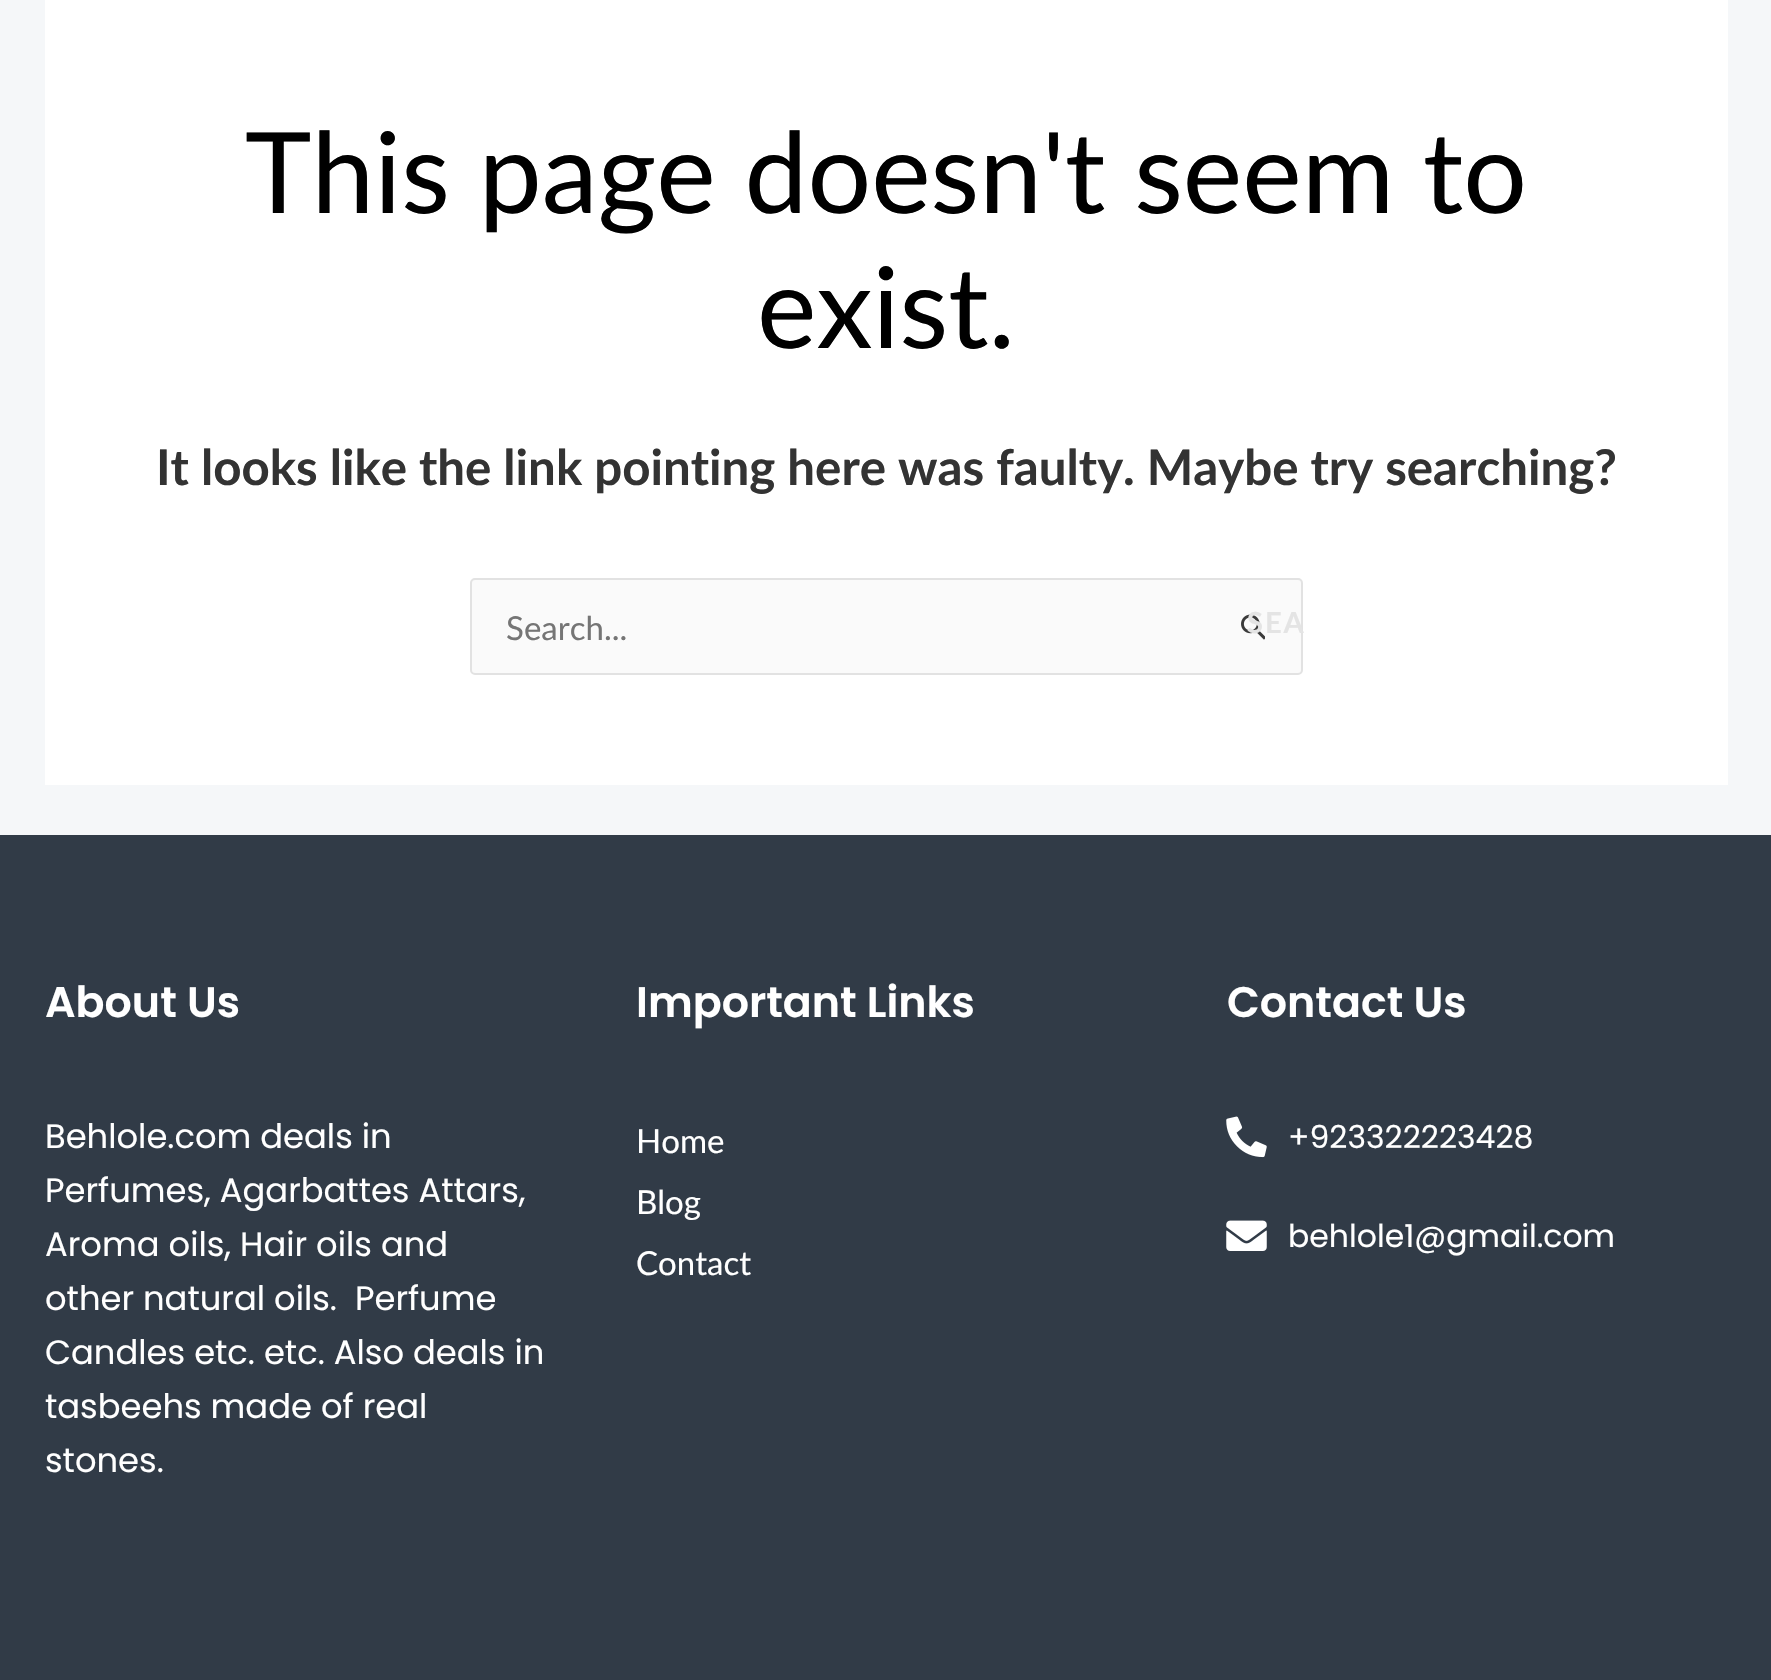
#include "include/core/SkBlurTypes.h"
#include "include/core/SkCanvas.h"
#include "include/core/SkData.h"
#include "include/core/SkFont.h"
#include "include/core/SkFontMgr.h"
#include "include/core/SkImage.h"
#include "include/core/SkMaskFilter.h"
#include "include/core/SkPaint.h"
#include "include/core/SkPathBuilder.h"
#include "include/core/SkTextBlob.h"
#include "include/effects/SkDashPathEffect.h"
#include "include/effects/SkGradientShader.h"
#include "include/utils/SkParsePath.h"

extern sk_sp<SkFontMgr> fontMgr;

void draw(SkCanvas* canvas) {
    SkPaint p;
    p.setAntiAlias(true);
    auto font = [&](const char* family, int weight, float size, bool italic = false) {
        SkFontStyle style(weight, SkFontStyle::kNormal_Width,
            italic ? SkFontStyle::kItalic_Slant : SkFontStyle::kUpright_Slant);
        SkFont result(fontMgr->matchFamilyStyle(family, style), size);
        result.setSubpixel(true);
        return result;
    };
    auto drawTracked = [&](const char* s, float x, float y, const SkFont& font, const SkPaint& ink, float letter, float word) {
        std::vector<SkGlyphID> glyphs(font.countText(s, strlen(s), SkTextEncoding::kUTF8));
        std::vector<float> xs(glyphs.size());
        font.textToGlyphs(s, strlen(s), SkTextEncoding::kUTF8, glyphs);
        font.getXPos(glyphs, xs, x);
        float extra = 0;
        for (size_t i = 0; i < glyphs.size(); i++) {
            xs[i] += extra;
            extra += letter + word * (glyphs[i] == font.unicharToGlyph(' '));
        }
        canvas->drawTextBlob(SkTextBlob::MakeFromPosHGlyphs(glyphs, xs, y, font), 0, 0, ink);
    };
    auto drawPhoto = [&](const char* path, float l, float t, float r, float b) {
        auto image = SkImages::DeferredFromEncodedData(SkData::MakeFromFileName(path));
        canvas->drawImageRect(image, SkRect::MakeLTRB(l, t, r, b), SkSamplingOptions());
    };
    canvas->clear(0xFFF5F7F9);
    p.setColor(0xFFFFFFFF);
    canvas->drawRect(SkRect::MakeLTRB(45, 0, 1728, 785), p);
    auto font1 = font("Lato", 400, 112.5f);
    p.setColor(0xFF000000);
    canvas->drawString("This page doesn't seem to", 245, 213, font1, p);
    canvas->drawString("exist.", 757, 348, font1, p);
    auto font2 = font("Lato", 700, 49.25f);
    p.setColor(0xFF333333);
    canvas->drawString("It looks like the link pointing here was faulty. Maybe try searching?", 156, 485, font2, p);
    p.setColor(0xFFFAFAFA);
    canvas->drawRoundRect(SkRect::MakeLTRB(471, 579, 1302, 674), 4, 4, p);
    p.setStyle(SkPaint::kStroke_Style);
    p.setStrokeWidth(2);
    p.setColor(0xFFE2E2E2);
    canvas->drawRoundRect(SkRect::MakeLTRB(471, 579, 1302, 674), 4, 4, p);
    auto font3 = font("Lato", 400, 33);
    p.setStyle(SkPaint::kFill_Style);
    p.setColor(0xFF757575);
    canvas->drawString("Search...", 506, 640, font3, p);
    drawPhoto("media/1.png", 1241, 614, 1265, 640);
    auto font4 = font("Lato", 700, 29);
    p.setColor(0xFFE4E4E4);
    drawTracked("SEA", 1247, 633, font4, p, 2, 0);
    p.setColor(0xFF313B47);
    canvas->drawRect(SkRect::MakeLTRB(0, 835, 1771, 1680), p);
    auto font5 = font("Poppins", 600, 42.75f);
    p.setColor(0xFFFFFFFF);
    canvas->drawString("About Us", 45, 1017, font5, p);
    auto font6 = font("Poppins", 400, 33.75f);
    {
        const struct { const char* s; float x, y; } items[] = {
            {"Behlole.com deals in", 45, 1148},
            {"Perfumes, Agarbattes Attars,", 45, 1202},
            {"Aroma oils, Hair oils and", 45, 1256},
            {"other natural oils.  Perfume", 45, 1310},
            {"Candles etc. etc. Also deals in", 45, 1364},
            {"tasbeehs made of real", 45, 1418},
            {"stones.", 45, 1472},
        };
        for (auto [s, x, y] : items) {
            canvas->drawString(s, x, y, font6, p);
        }
    }
    canvas->drawString("Important Links", 636, 1017, font5, p);
    {
        const struct { const char* s; float x, y; } items[] = {
            {"Home", 636, 1153},
            {"Blog", 636, 1214},
            {"Contact", 636, 1275},
        };
        for (auto [s, x, y] : items) {
            canvas->drawString(s, x, y, font3, p);
        }
    }
    canvas->drawString("Contact Us", 1227, 1017, font5, p);
    drawPhoto("media/2.png", 1226, 1116, 1267, 1158);
    auto font7 = font("Poppins", 400, 31.5f);
    canvas->drawString("+923322223428", 1288, 1148, font7, p);
    drawPhoto("media/3.png", 1226, 1220, 1267, 1251);
    canvas->drawString("behlole1@gmail.com", 1288, 1247, font7, p);
}
